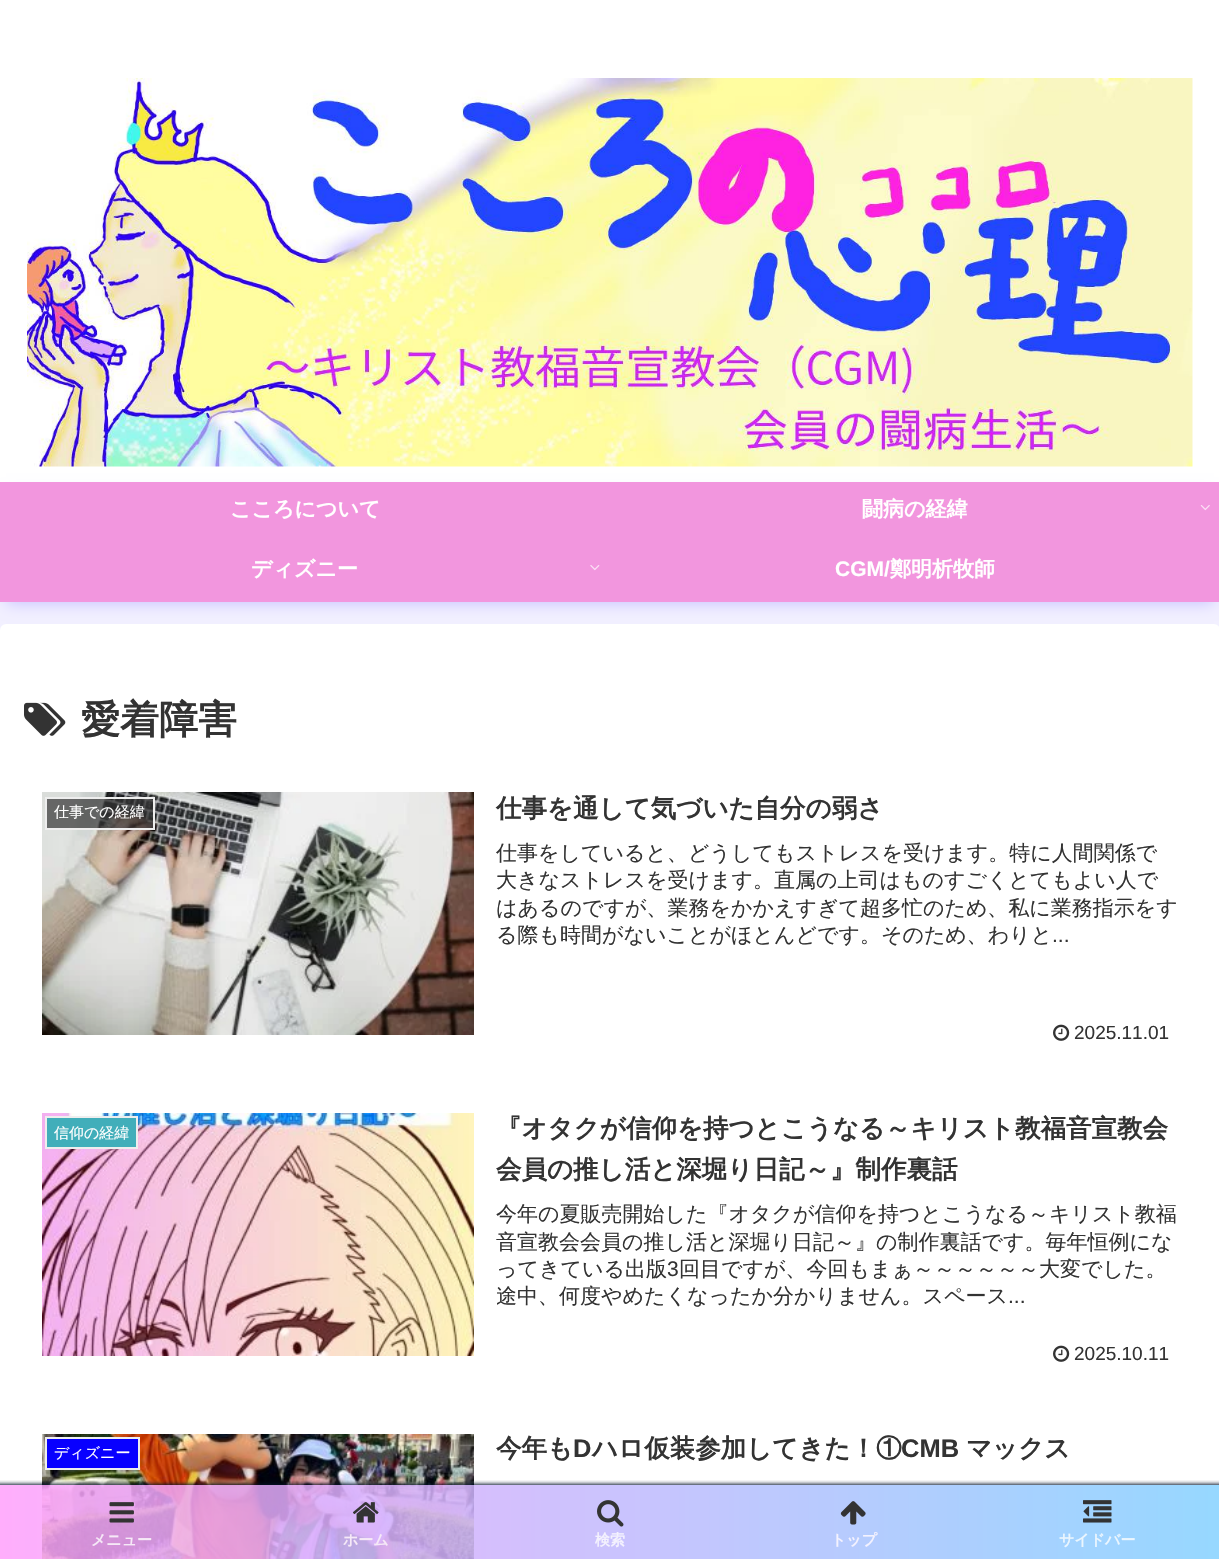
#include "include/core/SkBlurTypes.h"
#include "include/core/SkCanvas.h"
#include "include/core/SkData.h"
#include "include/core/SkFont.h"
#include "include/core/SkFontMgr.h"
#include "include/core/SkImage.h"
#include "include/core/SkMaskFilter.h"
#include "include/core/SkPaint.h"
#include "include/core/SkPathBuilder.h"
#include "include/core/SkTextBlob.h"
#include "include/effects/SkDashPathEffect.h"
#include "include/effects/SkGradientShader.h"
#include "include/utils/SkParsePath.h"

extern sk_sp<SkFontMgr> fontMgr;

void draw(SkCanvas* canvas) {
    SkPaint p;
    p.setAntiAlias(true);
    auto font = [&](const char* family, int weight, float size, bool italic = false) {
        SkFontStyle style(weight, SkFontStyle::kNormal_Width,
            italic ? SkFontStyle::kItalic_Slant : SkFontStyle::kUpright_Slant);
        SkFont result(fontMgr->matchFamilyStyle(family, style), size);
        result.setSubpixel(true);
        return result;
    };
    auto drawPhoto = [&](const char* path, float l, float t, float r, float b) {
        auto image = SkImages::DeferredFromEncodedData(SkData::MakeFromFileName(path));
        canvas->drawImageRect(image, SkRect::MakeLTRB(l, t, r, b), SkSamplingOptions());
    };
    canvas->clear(0xFFF2F0FF);
    p.setColor(0xFFFFFFFF);
    canvas->drawRect(SkRect::MakeLTRB(0, 0, 1219, 482), p);
    drawPhoto("media/1.png", 27, 78, 1193, 467);
    p.setColor(0xFFC7C0FF);
    p.setMaskFilter(SkMaskFilter::MakeBlur(kNormal_SkBlurStyle, 7.5f));
    canvas->drawRect(SkRect::MakeLTRB(6, 495, 1214, 603), p);
    p.setMaskFilter(nullptr);
    p.setColor(0xFFF296DE);
    canvas->drawRect(SkRect::MakeLTRB(0, 482, 1219, 602), p);
    auto font1 = font("WenQuanYi Zen Hei", 700, 21);
    p.setColor(0xFFFFFFFF);
    canvas->drawString("こころについて", 230, 516, font1, p);
    canvas->drawString("闘病の経緯", 862, 516, font1, p);
    drawPhoto("media/2.png", 1200, 505, 1210, 511);
    canvas->drawString("ディズニー", 251, 576, font1, p);
    drawPhoto("media/3.png", 590, 565, 600, 571);
    auto font2 = font("Liberation Sans", 700, 21);
    canvas->drawString("CGM/", 835, 576, font2, p);
    canvas->drawString("鄭明析牧師", 890, 576, font1, p);
    canvas->drawRoundRect(SkRect::MakeLTRB(0, 624, 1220, 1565), 6, 6, p);
    drawPhoto("media/4.png", 24, 702, 66, 736);
    auto font3 = font("WenQuanYi Zen Hei", 700, 39);
    p.setColor(0xFF333333);
    canvas->drawString("愛着障害", 81, 733, font3, p);
    drawPhoto("media/5.png", 42, 792, 474, 1035);
    p.setColor(0xB3333333);
    canvas->drawRect(SkRect::MakeLTRB(46, 798, 154, 829), p);
    p.setStyle(SkPaint::kStroke_Style);
    p.setStrokeWidth(2);
    p.setColor(0xFFEEEEEE);
    canvas->drawRect(SkRect::MakeLTRB(46, 798, 154, 829), p);
    auto font4 = font("WenQuanYi Zen Hei", 500, 15);
    p.setStyle(SkPaint::kFill_Style);
    p.setColor(0xFFFFFFFF);
    canvas->drawString("仕事での経緯", 54, 817, font4, p);
    auto font5 = font("WenQuanYi Zen Hei", 700, 25.5f);
    p.setColor(0xFF333333);
    canvas->drawString("仕事を通して気づいた自分の弱さ", 496, 817, font5, p);
    auto font6 = font("WenQuanYi Zen Hei", 500, 21);
    {
        const struct { const char* s; float x, y; } items[] = {
            {"仕事をしていると、どうしてもストレスを受けます。特に人間関係で", 496, 860},
            {"大きなストレスを受けます。直属の上司はものすごくとてもよい人で", 496, 887},
            {"はあるのですが、業務をかかえすぎて超多忙のため、私に業務指示をす", 496, 915},
            {"る際も時間がないことがほとんどです。そのため、わりと", 496, 942},
        };
        for (auto [s, x, y] : items) {
            canvas->drawString(s, x, y, font6, p);
        }
    }
    auto font7 = font("Liberation Sans", 400, 21);
    canvas->drawString("...", 1052, 942, font7, p);
    drawPhoto("media/6.png", 1053, 1024, 1070, 1041);
    auto font8 = font("Liberation Sans", 400, 19);
    canvas->drawString("2025.11.01", 1074, 1039, font8, p);
    drawPhoto("media/7.png", 42, 1113, 474, 1356);
    p.setColor(0xFF41AEBA);
    canvas->drawRect(SkRect::MakeLTRB(46, 1117, 137, 1148), p);
    p.setStyle(SkPaint::kStroke_Style);
    p.setColor(0xFFEEEEEE);
    canvas->drawRect(SkRect::MakeLTRB(46, 1117, 137, 1148), p);
    p.setStyle(SkPaint::kFill_Style);
    p.setColor(0xFFFFFFFF);
    canvas->drawString("信仰の経緯", 54, 1138, font4, p);
    p.setColor(0xFF333333);
    canvas->drawString("『オタクが信仰を持つとこうなる～キリスト教福音宣教会", 496, 1137, font5, p);
    canvas->drawString("会員の推し活と深堀り日記～』制作裏話", 496, 1178, font5, p);
    {
        const struct { const char* s; float x, y; } items[] = {
            {"今年の夏販売開始した『オタクが信仰を持つとこうなる～キリスト教福", 496, 1221},
            {"音宣教会会員の推し活と深堀り日記～』の制作裏話です。毎年恒例にな", 496, 1249},
            {"ってきている出版", 496, 1276},
        };
        for (auto [s, x, y] : items) {
            canvas->drawString(s, x, y, font6, p);
        }
    }
    canvas->drawString("3", 667, 1276, font7, p);
    canvas->drawString("回目ですが、今回もまぁ～～～～～～大変でした。", 679, 1276, font6, p);
    canvas->save();
    canvas->clipRect(SkRect::MakeLTRB(497, 1200, 1178, 1310));
    canvas->drawString("途中、何度やめたくなったか分かりません。スペース", 496, 1303, font6, p);
    canvas->restore();
    canvas->drawString("...", 1008, 1303, font7, p);
    drawPhoto("media/6.png", 1053, 1345, 1070, 1362);
    canvas->drawString("2025.10.11", 1074, 1360, font8, p);
    drawPhoto("media/8.png", 42, 1434, 474, 1559);
    p.setColor(0xFF0800FF);
    canvas->drawRect(SkRect::MakeLTRB(46, 1438, 139, 1469), p);
    p.setStyle(SkPaint::kStroke_Style);
    p.setColor(0xFFEEEEEE);
    canvas->drawRect(SkRect::MakeLTRB(46, 1438, 139, 1469), p);
    p.setStyle(SkPaint::kFill_Style);
    p.setColor(0xFFFFFFFF);
    canvas->drawString("ディズニー", 54, 1458, font4, p);
    p.setColor(0xFF333333);
    canvas->drawString("今年も", 496, 1457, font5, p);
    auto font9 = font("Liberation Sans", 700, 25.5f);
    canvas->drawString("D", 573, 1457, font9, p);
    canvas->drawString("ハロ仮装参加してきた！①", 592, 1457, font5, p);
    canvas->drawString("CMB", 901, 1457, font9, p);
    canvas->drawString("マックス", 966, 1457, font5, p);
    canvas->save();
    canvas->clipRect(SkRect::MakeLTRB(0, 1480, 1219, 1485));
    p.setColor(0xFF041329);
    p.setMaskFilter(SkMaskFilter::MakeBlur(kNormal_SkBlurStyle, 2));
    canvas->drawRect(SkRect::MakeLTRB(-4, 1484, 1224, 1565), p);
    p.setMaskFilter(nullptr);
    canvas->restore();
    {
        const SkColor colors[] = {0xD984D1FF, 0xD9FFA0FC};
        const float stops[] = {0, 1};
        const SkPoint ends[] = {{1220, 1523}, {0, 1523}};
        p.setShader(SkGradientShader::MakeLinear(ends, colors, stops, 2, SkTileMode::kClamp));
        p.setAlpha(255);
    }
    canvas->drawRect(SkRect::MakeLTRB(0, 1485, 1219, 1559), p);
    drawPhoto("media/9.png", 109, 1502, 134, 1523);
    auto font10 = font("WenQuanYi Zen Hei", 700, 15);
    p.setShader(nullptr);
    p.setColor(0xFFF6E9F7);
    canvas->drawString("メニュー", 91, 1545, font10, p);
    drawPhoto("media/10.png", 353, 1502, 379, 1523);
    canvas->drawString("ホーム", 343, 1545, font10, p);
    drawPhoto("media/11.png", 597, 1500, 624, 1527);
    p.setColor(0xFFF4F2FE);
    canvas->drawString("検索", 595, 1545, font10, p);
    drawPhoto("media/12.png", 840, 1501, 866, 1525);
    canvas->drawString("トップ", 831, 1545, font10, p);
    drawPhoto("media/13.png", 1083, 1500, 1112, 1523);
    p.setColor(0xFFEBF6FE);
    canvas->drawString("サイドバー", 1059, 1545, font10, p);
}
